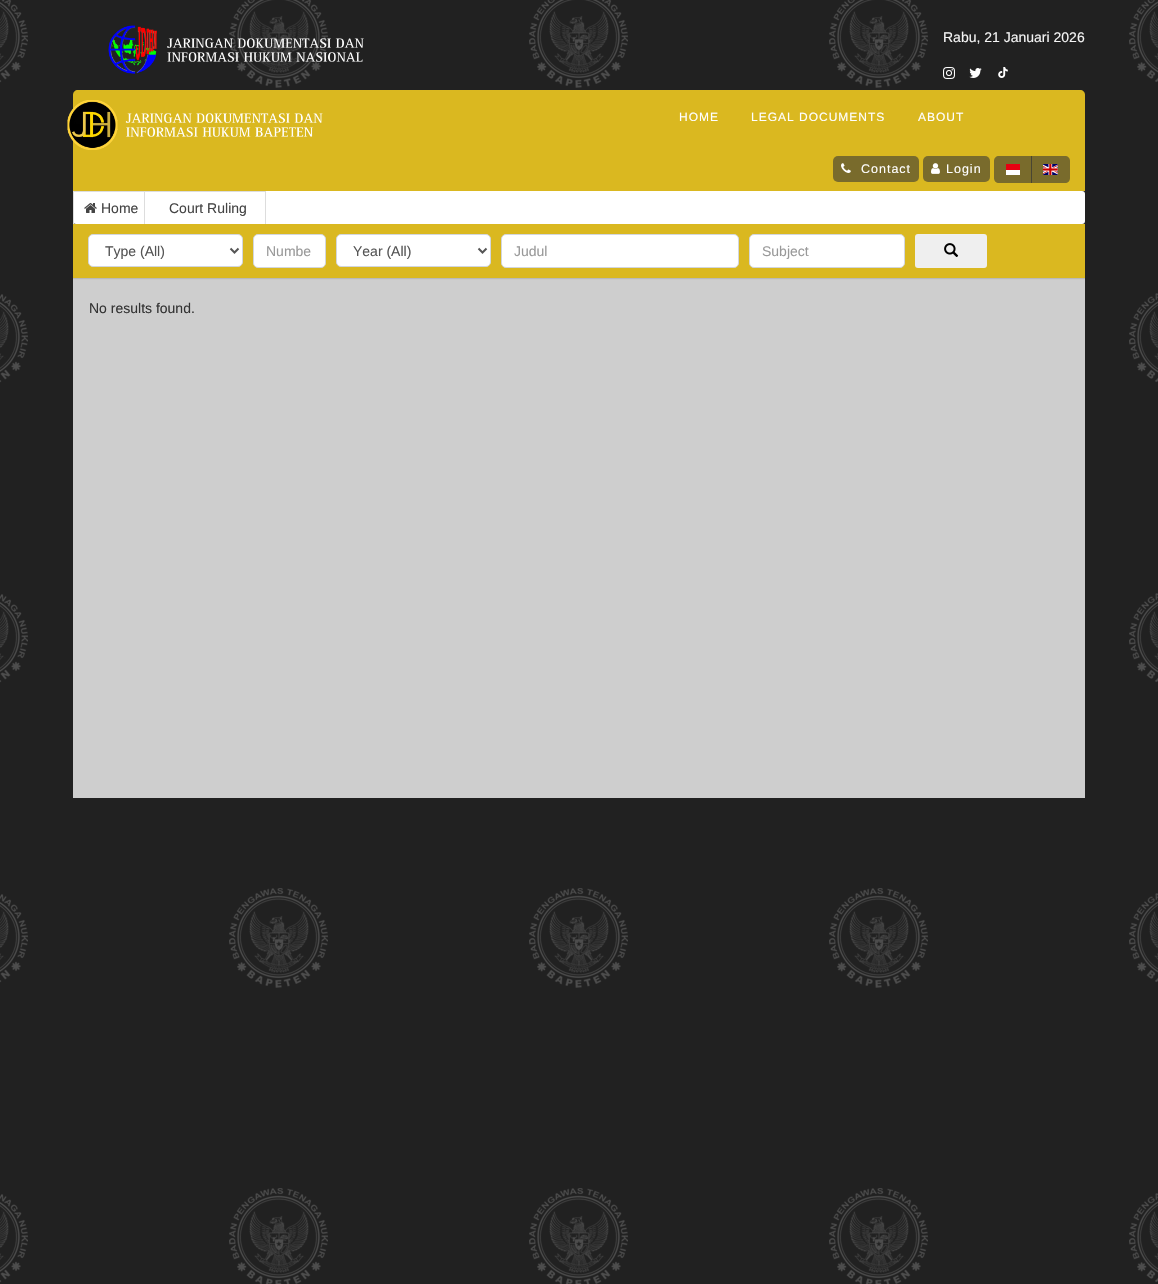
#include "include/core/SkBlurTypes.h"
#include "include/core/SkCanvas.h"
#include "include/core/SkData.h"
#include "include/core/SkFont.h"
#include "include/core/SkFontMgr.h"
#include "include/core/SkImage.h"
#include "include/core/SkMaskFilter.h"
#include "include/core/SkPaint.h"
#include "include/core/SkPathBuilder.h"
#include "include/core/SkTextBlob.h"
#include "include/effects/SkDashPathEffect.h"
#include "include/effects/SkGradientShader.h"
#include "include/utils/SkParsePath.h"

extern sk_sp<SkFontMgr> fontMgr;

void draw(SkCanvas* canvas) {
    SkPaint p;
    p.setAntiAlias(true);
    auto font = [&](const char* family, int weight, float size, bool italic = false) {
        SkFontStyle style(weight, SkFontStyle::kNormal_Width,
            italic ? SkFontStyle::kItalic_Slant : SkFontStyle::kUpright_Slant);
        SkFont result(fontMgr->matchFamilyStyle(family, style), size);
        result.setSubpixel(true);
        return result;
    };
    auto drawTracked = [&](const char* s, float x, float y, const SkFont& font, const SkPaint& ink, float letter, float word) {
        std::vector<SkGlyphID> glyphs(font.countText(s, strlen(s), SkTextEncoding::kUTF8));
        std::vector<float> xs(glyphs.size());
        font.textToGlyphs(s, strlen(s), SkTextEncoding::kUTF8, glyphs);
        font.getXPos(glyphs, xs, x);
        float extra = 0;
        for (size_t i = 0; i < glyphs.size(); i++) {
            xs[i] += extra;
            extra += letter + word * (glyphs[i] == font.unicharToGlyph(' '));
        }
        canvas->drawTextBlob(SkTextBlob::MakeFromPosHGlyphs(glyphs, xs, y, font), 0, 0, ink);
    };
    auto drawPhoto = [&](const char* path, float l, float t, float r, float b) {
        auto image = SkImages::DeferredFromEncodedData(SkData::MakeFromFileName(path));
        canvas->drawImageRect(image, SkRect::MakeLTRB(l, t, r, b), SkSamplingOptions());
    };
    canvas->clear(0xFF212121);
    drawPhoto("media/1.png", 0, 0, 1158, 1284);
    drawPhoto("media/2.png", 108, 25, 364, 74);
    p.setColor(0xFFDAB820);
    canvas->drawPath(SkPathBuilder().moveTo(78, 90).lineTo(1080, 90).cubicTo(1083, 90, 1085, 92, 1085, 95).lineTo(1085, 191).lineTo(73, 191).lineTo(73, 95).cubicTo(73, 92, 75, 90, 78, 90).close().detach(), p);
    drawPhoto("media/3.png", 67, 100, 323, 150);
    auto font1 = font("Liberation Sans", 400, 14);
    p.setColor(0xFFF5F5F5);
    canvas->drawString("Rabu, 21 Januari 2026", 943, 42, font1, p);
    drawPhoto("media/4.png", 943, 67, 955, 79);
    drawPhoto("media/5.png", 969, 68, 982, 78);
    drawPhoto("media/6.png", 998, 67, 1008, 78);
    auto font2 = font("Liberation Sans", 400, 12);
    p.setColor(0xFFFFFFFF);
    {
        const struct { const char* s; float x, y; } items[] = {
            {"HOME", 679, 121},
            {"LEGAL DOCUMENTS", 751, 121},
            {"ABOUT", 918, 121},
        };
        for (auto [s, x, y] : items) {
            drawTracked(s, x, y, font2, p, 1, 0);
        }
    }
    p.setColor(0xFF796B2C);
    canvas->drawRoundRect(SkRect::MakeLTRB(833, 156, 919, 182), 5, 5, p);
    drawPhoto("media/7.png", 841, 163, 851, 173);
    auto font3 = font("Liberation Sans", 400, 12.5f);
    p.setColor(0xFFFFFFFF);
    drawTracked("Contact", 861, 173, font3, p, 1, 0);
    p.setColor(0xFF796B2C);
    canvas->drawRoundRect(SkRect::MakeLTRB(923, 156, 990, 182), 5, 5, p);
    drawPhoto("media/8.png", 931, 163, 940, 174);
    p.setColor(0xFFFFFFFF);
    drawTracked("Login", 946, 173, font3, p, 1, 0);
    p.setColor(0xFF796B2C);
    canvas->drawPath(SkPathBuilder().moveTo(999, 156).lineTo(1032, 156).lineTo(1032, 183).lineTo(999, 183).cubicTo(996, 183, 994, 181, 994, 178).lineTo(994, 161).cubicTo(994, 158, 996, 156, 999, 156).close().detach(), p);
    p.setColor(0xFFE70011);
    canvas->drawRect(SkRect::MakeLTRB(1006, 164, 1020, 170), p);
    p.setColor(0xFFFFFFFF);
    canvas->drawRect(SkRect::MakeLTRB(1006, 170, 1020, 175), p);
    p.setColor(0x80181E38);
    canvas->drawPath(SkPathBuilder().moveTo(1031, 156).lineTo(1065, 156).cubicTo(1068, 156, 1070, 158, 1070, 161).lineTo(1070, 178).cubicTo(1070, 181, 1068, 183, 1065, 183).lineTo(1031, 183).close().detach(), p);
    drawPhoto("media/9.png", 1043, 164, 1058, 175);
    p.setColor(0xFFFFFFFF);
    canvas->drawRoundRect(SkRect::MakeLTRB(73, 191, 1085, 224), 3, 3, p);
    {
        const struct { float l, t, r, b; SkColor color; } items[] = {
            {73, 191, 145, 192, 0xFFDDDDDD},
            {144, 191, 145, 224, 0xFFDDDDDD},
            {73, 191, 74, 224, 0xFFDDDDDD},
        };
        for (auto [l, t, r, b, color] : items) {
            p.setColor(color);
            canvas->drawRect(SkRect::MakeLTRB(l, t, r, b), p);
        }
    }
    drawPhoto("media/10.png", 84, 203, 97, 213);
    p.setColor(0xFF444444);
    canvas->drawString("Home", 101, 213, font1, p);
    p.setColor(0xFFDDDDDD);
    canvas->drawRect(SkRect::MakeLTRB(144, 191, 266, 192), p);
    canvas->drawRect(SkRect::MakeLTRB(265, 191, 266, 224), p);
    p.setColor(0xFF444444);
    canvas->drawString("Court Ruling", 169, 213, font1, p);
    p.setColor(0xFFCECECE);
    canvas->drawRect(SkRect::MakeLTRB(73, 278, 1085, 798), p);
    p.setColor(0x1A000000);
    p.setMaskFilter(SkMaskFilter::MakeBlur(kNormal_SkBlurStyle, 0.5f));
    canvas->drawRect(SkRect::MakeLTRB(73, 225, 1085, 279), p);
    p.setMaskFilter(nullptr);
    p.setColor(0xFFDAB820);
    canvas->drawRect(SkRect::MakeLTRB(73, 224, 1085, 278), p);
    p.setColor(0xFFFFFFFF);
    canvas->drawRoundRect(SkRect::MakeLTRB(88.5f, 234.5f, 242.5f, 266.5f), 4.5f, 4.5f, p);
    p.setStyle(SkPaint::kStroke_Style);
    p.setStrokeWidth(1);
    p.setColor(0xFFD2D6DE);
    canvas->drawRoundRect(SkRect::MakeLTRB(88.5f, 234.5f, 242.5f, 266.5f), 4.5f, 4.5f, p);
    p.setStrokeWidth(2);
    p.setColor(0xFF555555);
    canvas->drawPath(SkPathBuilder().moveTo(230.5f, 248.5f).lineTo(234.5f, 252.5f).lineTo(238.5f, 248.5f).detach(), p);
    p.setStyle(SkPaint::kFill_Style);
    canvas->drawString("Type (All)", 105, 256, font1, p);
    p.setColor(0xFFFFFFFF);
    canvas->drawRoundRect(SkRect::MakeLTRB(253.5f, 234.5f, 325.5f, 267.5f), 4.5f, 4.5f, p);
    p.setStyle(SkPaint::kStroke_Style);
    p.setStrokeWidth(1);
    p.setColor(0xFFD2D6DE);
    canvas->drawRoundRect(SkRect::MakeLTRB(253.5f, 234.5f, 325.5f, 267.5f), 4.5f, 4.5f, p);
    p.setStyle(SkPaint::kFill_Style);
    p.setColor(0xFF999999);
    canvas->drawString("Numbe", 266, 256, font1, p);
    p.setColor(0xFFFFFFFF);
    canvas->drawRoundRect(SkRect::MakeLTRB(336.5f, 234.5f, 490.5f, 266.5f), 4.5f, 4.5f, p);
    p.setStyle(SkPaint::kStroke_Style);
    p.setColor(0xFFD2D6DE);
    canvas->drawRoundRect(SkRect::MakeLTRB(336.5f, 234.5f, 490.5f, 266.5f), 4.5f, 4.5f, p);
    p.setStrokeWidth(2);
    p.setColor(0xFF555555);
    canvas->drawPath(SkPathBuilder().moveTo(478.5f, 248.5f).lineTo(482.5f, 252.5f).lineTo(486.5f, 248.5f).detach(), p);
    p.setStyle(SkPaint::kFill_Style);
    canvas->drawString("Year (All)", 353, 256, font1, p);
    p.setColor(0xFFFFFFFF);
    canvas->drawRoundRect(SkRect::MakeLTRB(501.5f, 234.5f, 738.5f, 267.5f), 4.5f, 4.5f, p);
    p.setStyle(SkPaint::kStroke_Style);
    p.setStrokeWidth(1);
    p.setColor(0xFFD2D6DE);
    canvas->drawRoundRect(SkRect::MakeLTRB(501.5f, 234.5f, 738.5f, 267.5f), 4.5f, 4.5f, p);
    p.setStyle(SkPaint::kFill_Style);
    p.setColor(0xFF999999);
    canvas->drawString("Judul", 514, 256, font1, p);
    p.setColor(0xFFFFFFFF);
    canvas->drawRoundRect(SkRect::MakeLTRB(749.5f, 234.5f, 904.5f, 267.5f), 4.5f, 4.5f, p);
    p.setStyle(SkPaint::kStroke_Style);
    p.setColor(0xFFD2D6DE);
    canvas->drawRoundRect(SkRect::MakeLTRB(749.5f, 234.5f, 904.5f, 267.5f), 4.5f, 4.5f, p);
    p.setStyle(SkPaint::kFill_Style);
    p.setColor(0xFF999999);
    canvas->drawString("Subject", 762, 256, font1, p);
    p.setColor(0xFFEFEFEF);
    canvas->drawRoundRect(SkRect::MakeLTRB(915, 234, 987, 268), 3, 3, p);
    drawPhoto("media/11.png", 944, 243, 959, 257);
    p.setColor(0xFF333333);
    canvas->drawString("No results found.", 89, 313, font1, p);
}
